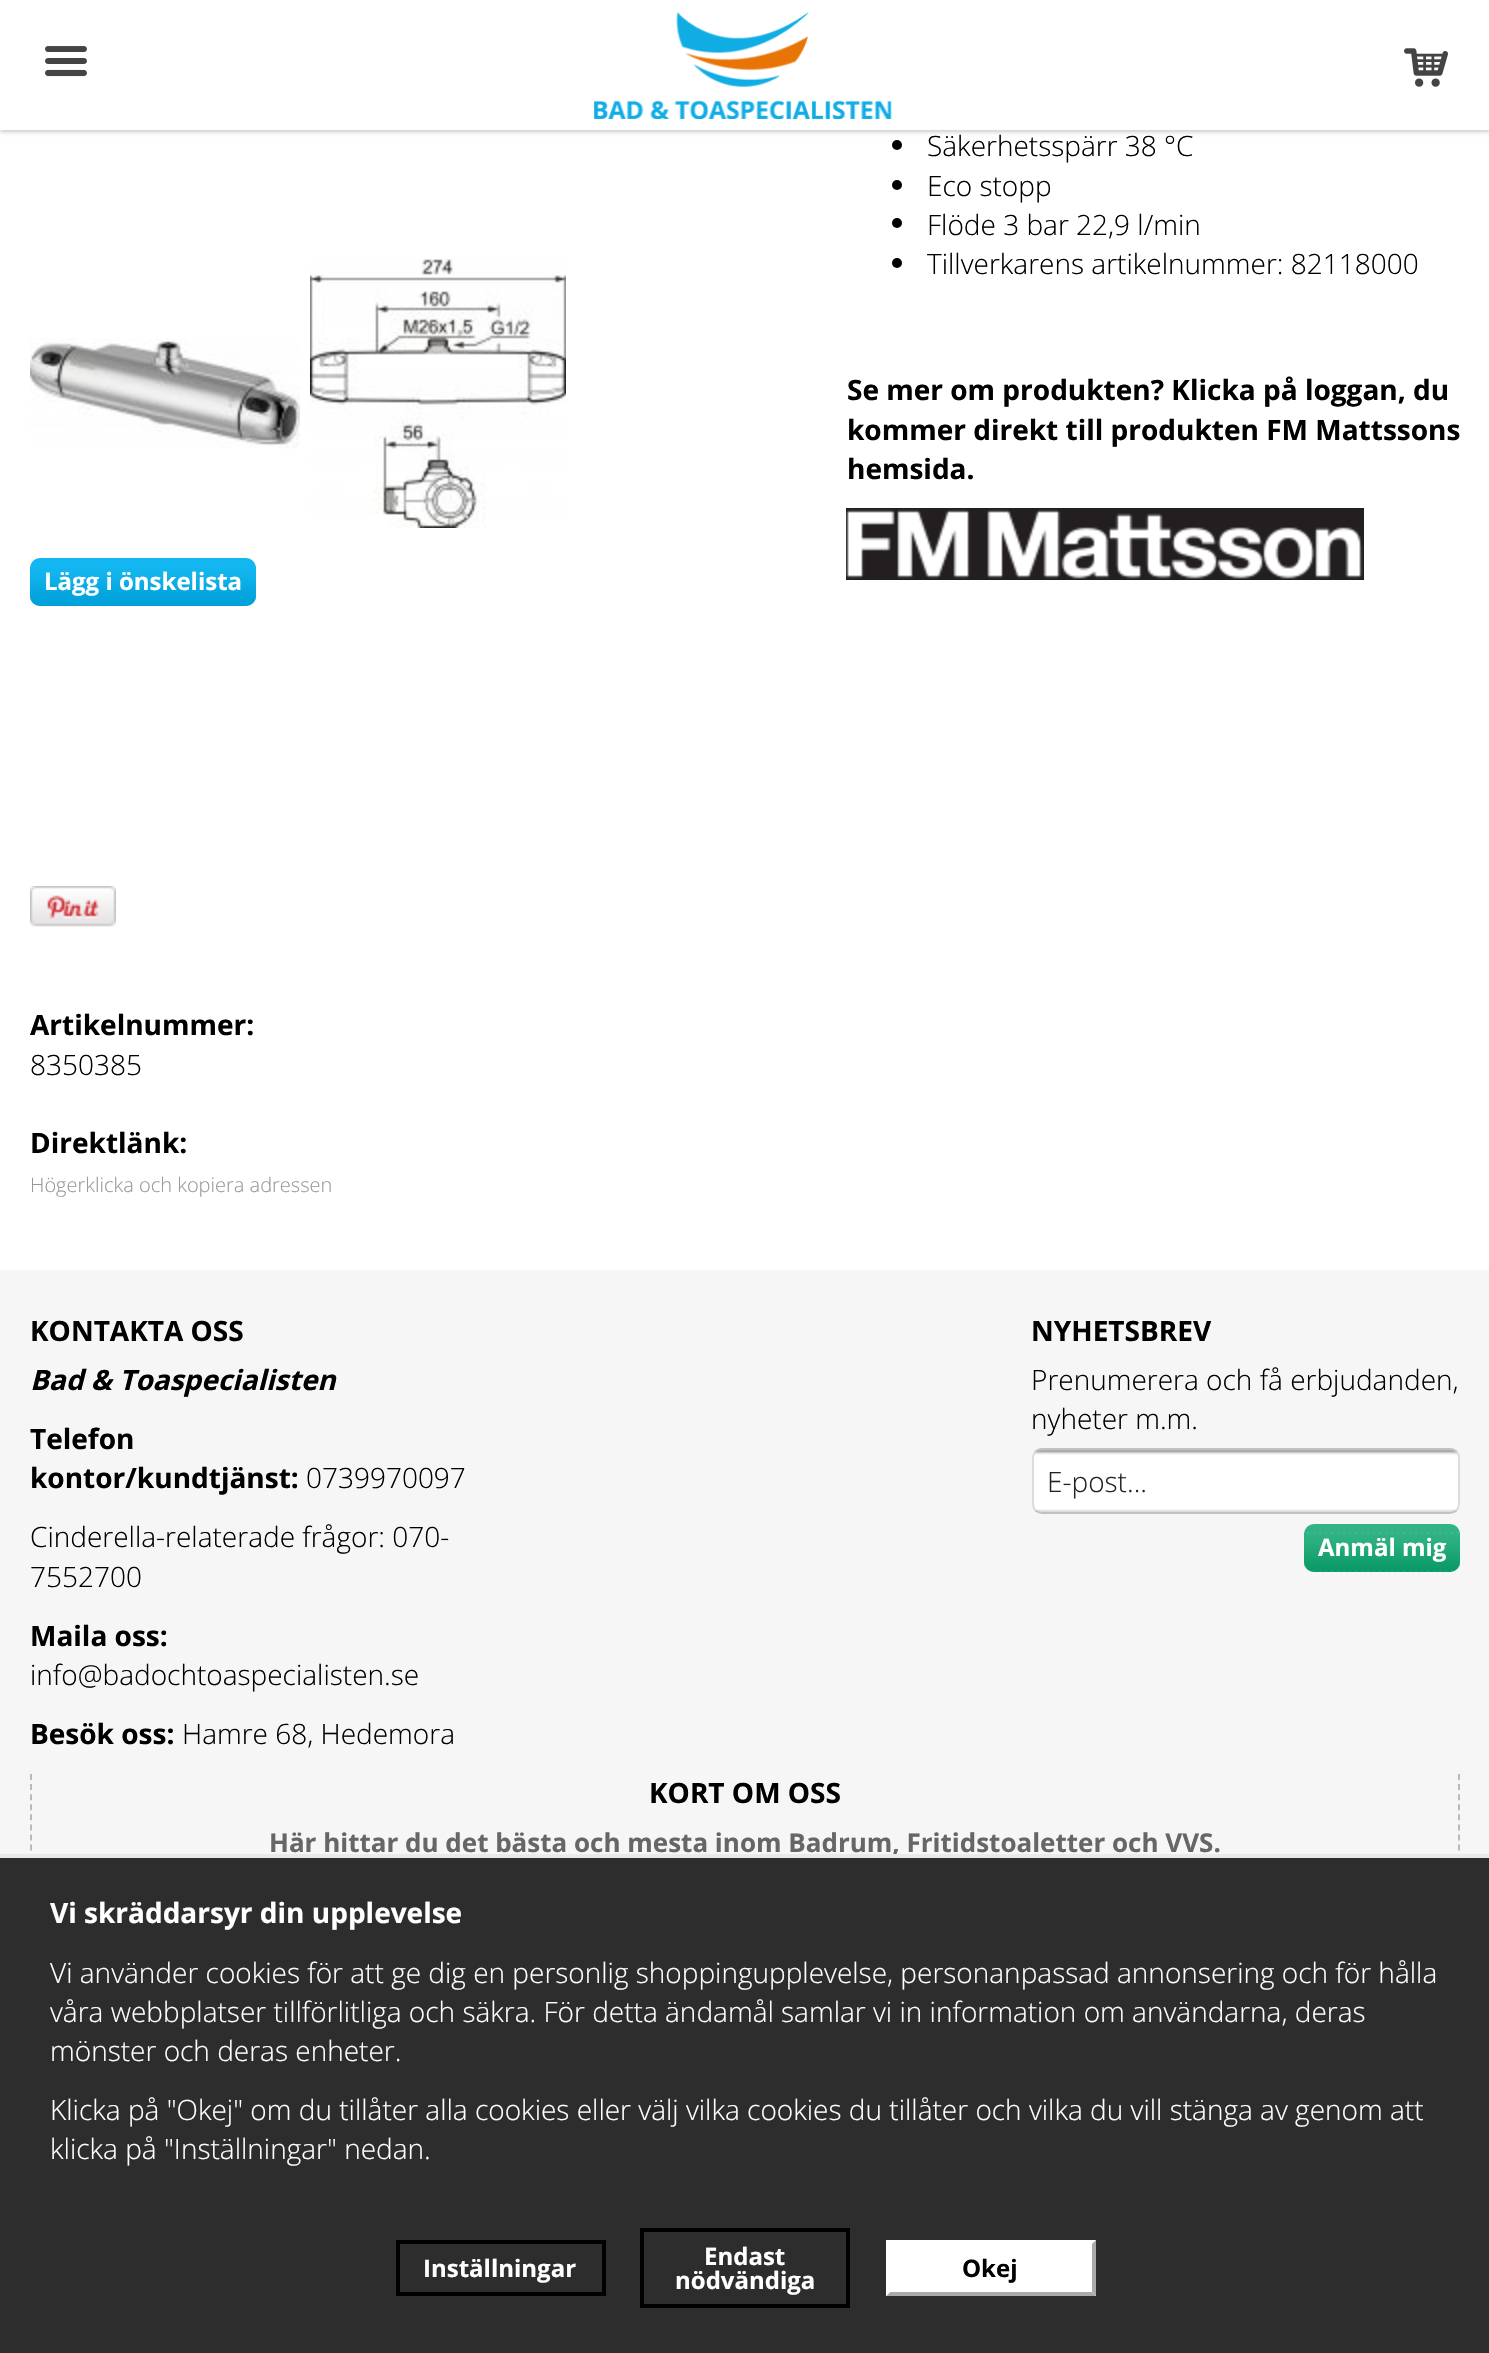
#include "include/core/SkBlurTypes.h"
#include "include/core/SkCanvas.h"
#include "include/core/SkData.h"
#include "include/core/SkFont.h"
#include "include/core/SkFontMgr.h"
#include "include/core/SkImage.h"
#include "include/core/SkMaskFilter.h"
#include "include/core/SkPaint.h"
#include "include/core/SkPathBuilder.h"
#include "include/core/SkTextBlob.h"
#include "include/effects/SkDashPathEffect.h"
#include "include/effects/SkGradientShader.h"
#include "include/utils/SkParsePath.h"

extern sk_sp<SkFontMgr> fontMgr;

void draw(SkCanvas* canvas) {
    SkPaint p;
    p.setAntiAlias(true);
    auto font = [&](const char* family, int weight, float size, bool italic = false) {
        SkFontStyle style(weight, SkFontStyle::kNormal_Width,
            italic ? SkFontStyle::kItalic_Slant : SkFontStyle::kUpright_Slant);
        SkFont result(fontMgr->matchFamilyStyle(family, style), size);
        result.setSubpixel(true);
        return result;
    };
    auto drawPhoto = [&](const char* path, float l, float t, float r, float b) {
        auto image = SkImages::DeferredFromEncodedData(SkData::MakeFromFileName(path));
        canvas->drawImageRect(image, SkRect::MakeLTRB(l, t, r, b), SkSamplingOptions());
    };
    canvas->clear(0xFFFFFFFF);
    p.setColor(0x33000000);
    p.setMaskFilter(SkMaskFilter::MakeBlur(kNormal_SkBlurStyle, 2));
    canvas->drawRect(SkRect::MakeLTRB(0, 2, 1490, 132), p);
    p.setMaskFilter(nullptr);
    p.setColor(0xFFFFFFFF);
    canvas->drawRect(SkRect::MakeLTRB(0, 0, 1489, 130), p);
    drawPhoto("media/1.png", 45, 46, 87, 77);
    drawPhoto("media/2.png", 594, 12, 892, 119);
    drawPhoto("media/3.png", 1404, 48, 1448, 87);
    p.setColor(0xFF000000);
    canvas->drawCircle(897, 145, 5, p);
    auto font1 = font("Open Sans", 300, 28);
    canvas->drawString("Säkerhetsspärr 38 °C", 927, 156, font1, p);
    canvas->drawCircle(897, 185, 5, p);
    canvas->drawString("Eco stopp", 927, 196, font1, p);
    canvas->drawCircle(897, 223, 5, p);
    canvas->drawString("Flöde 3 bar 22,9 l/min", 927, 235, font1, p);
    canvas->drawCircle(897, 263, 5, p);
    canvas->drawString("Tillverkarens artikelnummer: 82118000", 927, 274, font1, p);
    auto font2 = font("Open Sans", 700, 28);
    {
        const struct { const char* s; float x, y; } items[] = {
            {"Se mer om produkten? Klicka på loggan, du", 847, 400},
            {"kommer direkt till produkten FM Mattssons", 847, 440},
            {"hemsida.", 847, 479},
        };
        for (auto [s, x, y] : items) {
            canvas->drawString(s, x, y, font2, p);
        }
    }
    drawPhoto("media/4.png", 846, 508, 1364, 580);
    drawPhoto("media/5.png", 30, 338, 300, 449);
    drawPhoto("media/6.png", 310, 258, 566, 528);
    p.setColor(0xFF13B6F0);
    canvas->drawRoundRect(SkRect::MakeLTRB(30, 558, 256, 606), 10, 10, p);
    drawPhoto("media/7.png", 30, 566, 256, 606);
    auto font3 = font("Open Sans", 700, 24);
    p.setColor(0xFFFFFFFF);
    canvas->drawString("Lägg i önskelista", 44, 590, font3, p);
    drawPhoto("media/8.png", 30, 886, 116, 927);
    p.setColor(0xFF000000);
    canvas->drawString("Artikelnummer:", 30, 1035, font2, p);
    canvas->drawString("8350385", 30, 1075, font1, p);
    canvas->drawString("Direktlänk:", 30, 1153, font2, p);
    auto font4 = font("Open Sans", 300, 20);
    p.setColor(0xFF999999);
    canvas->drawString("Högerklicka och kopiera adressen", 30, 1192, font4, p);
    p.setColor(0xFFF6F6F6);
    canvas->drawRect(SkRect::MakeLTRB(0, 1270, 1489, 1854), p);
    p.setColor(0xFF000000);
    canvas->drawString("KONTAKTA OSS", 30, 1341, font2, p);
    auto font5 = font("Open Sans", 700, 28, true);
    canvas->drawString("Bad & Toaspecialisten", 30, 1390, font5, p);
    canvas->drawString("Telefon", 30, 1449, font2, p);
    canvas->drawString("kontor/kundtjänst:", 30, 1488, font2, p);
    {
        const struct { const char* s; float x, y; } items[] = {
            {"0739970097", 306, 1488},
            {"Cinderella-relaterade frågor: 070-", 30, 1547},
            {"7552700", 30, 1587},
        };
        for (auto [s, x, y] : items) {
            canvas->drawString(s, x, y, font1, p);
        }
    }
    canvas->drawString("Maila oss:", 30, 1646, font2, p);
    canvas->drawString("info@badochtoaspecialisten.se", 30, 1685, font1, p);
    canvas->drawString("Besök oss:", 30, 1744, font2, p);
    canvas->drawString("Hamre 68, Hedemora", 182, 1744, font1, p);
    canvas->drawString("NYHETSBREV", 1031, 1341, font2, p);
    canvas->drawString("Prenumerera och få erbjudanden,", 1031, 1390, font1, p);
    canvas->drawString("nyheter m.m.", 1031, 1429, font1, p);
    drawPhoto("media/9.png", 1033, 1448, 1459, 1512);
    p.setStyle(SkPaint::kStroke_Style);
    p.setStrokeWidth(2);
    p.setColor(0xFFC2C2C2);
    canvas->drawPath(SkPathBuilder().moveTo(1035.5f, 1451.5f).cubicTo(1037.5f, 1450, 1039.5f, 1449, 1042, 1449).lineTo(1450, 1449).cubicTo(1452.5f, 1449, 1454.5f, 1450, 1456.5f, 1451.5f).detach(), p);
    p.setColor(0xFFDCDCDC);
    canvas->drawPath(SkPathBuilder().moveTo(1456.5f, 1451.5f).cubicTo(1458, 1453.5f, 1459, 1455.5f, 1459, 1458).lineTo(1459, 1504).cubicTo(1459, 1506.5f, 1458, 1508.5f, 1456.5f, 1510.5f).detach(), p);
    p.setColor(0xFFC2C2C2);
    canvas->drawPath(SkPathBuilder().moveTo(1456.5f, 1510.5f).cubicTo(1454.5f, 1512, 1452.5f, 1513, 1450, 1513).lineTo(1042, 1513).cubicTo(1039.5f, 1513, 1037.5f, 1512, 1035.5f, 1510.5f).detach(), p);
    p.setColor(0xFFDCDCDC);
    canvas->drawPath(SkPathBuilder().moveTo(1035.5f, 1510.5f).cubicTo(1034, 1508.5f, 1033, 1506.5f, 1033, 1504).lineTo(1033, 1458).cubicTo(1033, 1455.5f, 1034, 1453.5f, 1035.5f, 1451.5f).detach(), p);
    p.setStyle(SkPaint::kFill_Style);
    p.setColor(0xFF222222);
    canvas->drawString("E-post...", 1047, 1492, font1, p);
    p.setColor(0xFF31B384);
    canvas->drawRoundRect(SkRect::MakeLTRB(1304, 1524, 1460, 1572), 10, 10, p);
    drawPhoto("media/10.png", 1304, 1532, 1460, 1572);
    p.setColor(0xFFFFFFFF);
    canvas->drawString("Anmäl mig", 1318, 1556, font3, p);
    p.setStyle(SkPaint::kStroke_Style);
    p.setColor(0xFFBABABA);
    p.setPathEffect(SkDashPathEffect::Make({{6, 4.08f}}, 0));
    canvas->drawPath(SkPathBuilder().moveTo(1459, 1774).lineTo(1459, 2294).detach(), p);
    p.setPathEffect(nullptr);
    p.setPathEffect(SkDashPathEffect::Make({{6, 4.08f}}, 0));
    canvas->drawPath(SkPathBuilder().moveTo(31, 1774).lineTo(31, 2294).detach(), p);
    p.setPathEffect(nullptr);
    p.setStyle(SkPaint::kFill_Style);
    p.setColor(0xFF000000);
    canvas->drawString("KORT OM OSS", 649, 1803, font2, p);
    auto font6 = font("Open Sans", 700, 26);
    p.setColor(0xFF666666);
    canvas->drawString("Här hittar du det bästa och mesta inom Badrum, Fritidstoaletter och VVS.", 269, 1852, font6, p);
    p.setColor(0xFF2D2D2D);
    canvas->drawRect(SkRect::MakeLTRB(0, 1858, 1489, 2353), p);
    p.setColor(0xFFE9E9E9);
    canvas->drawRect(SkRect::MakeLTRB(0, 1854, 1489, 1858), p);
    p.setColor(0xFFFFFFFF);
    canvas->drawString("Vi skräddarsyr din upplevelse", 50, 1923, font2, p);
    {
        const struct { const char* s; float x, y; } items[] = {
            {"Vi använder cookies för att ge dig en personlig shoppingupplevelse, personanpassad annonsering och för hålla", 50, 1983},
            {"våra webbplatser tillförlitliga och säkra. För detta ändamål samlar vi in information om användarna, deras", 50, 2022},
            {"mönster och deras enheter.", 50, 2061},
            {"Klicka på \"Okej\" om du tillåter alla cookies eller välj vilka cookies du tillåter och vilka du vill stänga av genom att", 50, 2120},
            {"klicka på \"Inställningar\" nedan.", 50, 2159},
        };
        for (auto [s, x, y] : items) {
            canvas->drawString(s, x, y, font1, p);
        }
    }
    p.setStyle(SkPaint::kStroke_Style);
    p.setStrokeWidth(4);
    p.setColor(0xFF000000);
    canvas->drawRect(SkRect::MakeLTRB(398, 2242, 604, 2294), p);
    p.setStyle(SkPaint::kFill_Style);
    p.setColor(0xFFFFFFFF);
    canvas->drawString("Inställningar", 423, 2277, font3, p);
    p.setStyle(SkPaint::kStroke_Style);
    p.setColor(0xFF000000);
    canvas->drawRect(SkRect::MakeLTRB(642, 2230, 848, 2306), p);
    p.setStyle(SkPaint::kFill_Style);
    p.setColor(0xFFFFFFFF);
    canvas->drawString("Endast", 704, 2265, font3, p);
    canvas->drawString("nödvändiga", 675, 2289, font3, p);
    canvas->drawRect(SkRect::MakeLTRB(886, 2240, 1096, 2296), p);
    p.setColor(0xFFAAAAAA);
    canvas->drawPath(SkPathBuilder().moveTo(1096, 2240).lineTo(1096, 2296).lineTo(1092, 2292).lineTo(1092, 2244).close().detach(), p);
    canvas->drawPath(SkPathBuilder().moveTo(1096, 2296).lineTo(886, 2296).lineTo(890, 2292).lineTo(1092, 2292).close().detach(), p);
    p.setColor(0xFFFFFFFF);
    canvas->drawPath(SkPathBuilder().moveTo(886, 2296).lineTo(886, 2240).lineTo(890, 2244).lineTo(890, 2292).close().detach(), p);
    p.setColor(0xFF000000);
    canvas->drawString("Okej", 962, 2277, font3, p);
}
